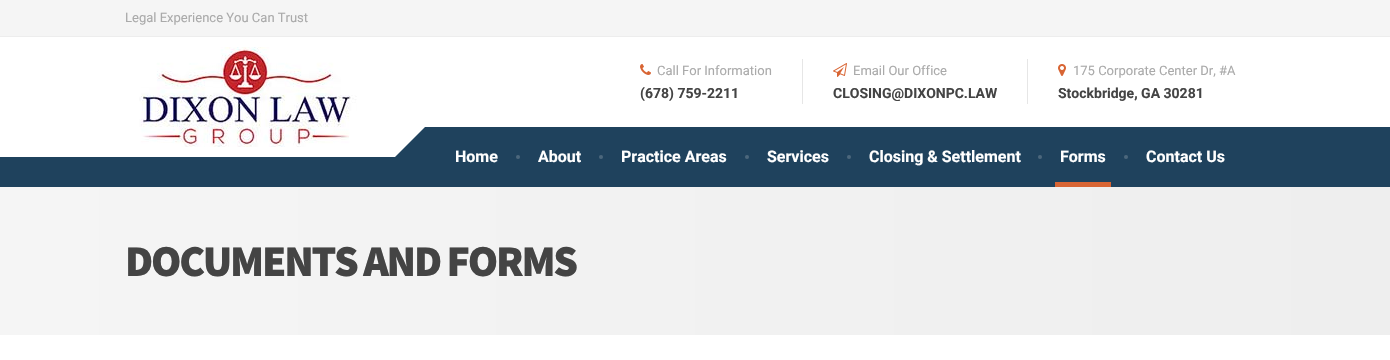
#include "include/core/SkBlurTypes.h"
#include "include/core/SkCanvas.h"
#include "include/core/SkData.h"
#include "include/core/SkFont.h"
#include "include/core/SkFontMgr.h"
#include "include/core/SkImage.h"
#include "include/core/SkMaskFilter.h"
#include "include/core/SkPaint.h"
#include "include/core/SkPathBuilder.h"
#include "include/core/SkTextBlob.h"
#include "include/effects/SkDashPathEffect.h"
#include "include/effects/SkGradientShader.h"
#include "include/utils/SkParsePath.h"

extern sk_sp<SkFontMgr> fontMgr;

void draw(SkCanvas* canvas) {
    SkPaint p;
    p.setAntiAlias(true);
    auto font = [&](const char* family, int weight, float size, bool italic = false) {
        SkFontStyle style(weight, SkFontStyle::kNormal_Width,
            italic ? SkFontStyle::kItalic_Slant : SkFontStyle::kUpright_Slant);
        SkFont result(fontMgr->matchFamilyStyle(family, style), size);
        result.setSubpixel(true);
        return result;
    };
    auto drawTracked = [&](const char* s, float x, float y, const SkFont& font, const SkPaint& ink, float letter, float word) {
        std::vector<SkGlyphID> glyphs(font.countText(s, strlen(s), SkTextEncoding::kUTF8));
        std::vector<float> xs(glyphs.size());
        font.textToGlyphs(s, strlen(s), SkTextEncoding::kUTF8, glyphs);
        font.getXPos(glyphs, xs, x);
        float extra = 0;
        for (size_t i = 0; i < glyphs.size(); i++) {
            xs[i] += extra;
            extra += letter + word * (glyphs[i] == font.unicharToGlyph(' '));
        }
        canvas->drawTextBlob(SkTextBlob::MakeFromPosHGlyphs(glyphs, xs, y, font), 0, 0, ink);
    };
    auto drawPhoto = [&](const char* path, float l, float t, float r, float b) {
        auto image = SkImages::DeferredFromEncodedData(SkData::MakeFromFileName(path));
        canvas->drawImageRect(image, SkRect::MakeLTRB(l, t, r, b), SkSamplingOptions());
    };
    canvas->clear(0xFFFFFFFF);
    p.setColor(0xFFF5F5F5);
    canvas->drawRect(SkRect::MakeLTRB(0, 0, 1390, 36), p);
    p.setColor(0xFFEDEDED);
    canvas->drawRect(SkRect::MakeLTRB(0, 36, 1390, 37), p);
    auto font1 = font("Roboto", 400, 13);
    p.setColor(0xFFAAAAAA);
    canvas->drawString("Legal Experience You Can Trust", 125, 22, font1, p);
    p.setColor(0xFF1F425D);
    canvas->drawRect(SkRect::MakeLTRB(0, 127, 1390, 187), p);
    p.setColor(0xFFFFFFFF);
    canvas->drawRect(SkRect::MakeLTRB(0, 127, 395, 157), p);
    drawPhoto("media/1.png", 139, 47, 357, 147);
    canvas->drawPath(SkPathBuilder().moveTo(426, 126).lineTo(395, 157).lineTo(365, 126).lineTo(395, 96).close().detach(), p);
    drawPhoto("media/2.png", 640, 64, 651, 75);
    p.setColor(0xFFAAAAAA);
    canvas->drawString("Call For Information", 657, 75, font1, p);
    auto font2 = font("Roboto", 700, 14);
    p.setColor(0xFF444444);
    canvas->drawString("(678) 759-2211", 640, 98, font2, p);
    p.setColor(0xFFE6E6E6);
    canvas->drawRect(SkRect::MakeLTRB(802, 59, 803, 104), p);
    drawPhoto("media/3.png", 833, 63, 847, 77);
    p.setColor(0xFFAAAAAA);
    canvas->drawString("Email Our Office", 853, 75, font1, p);
    p.setColor(0xFF444444);
    canvas->drawString("CLOSING@DIXONPC.LAW", 833, 98, font2, p);
    p.setColor(0xFFE6E6E6);
    canvas->drawRect(SkRect::MakeLTRB(1027, 59, 1028, 104), p);
    drawPhoto("media/4.png", 1058, 64, 1066, 76);
    p.setColor(0xFFAAAAAA);
    canvas->drawString("175 Corporate Center Dr, #A", 1073, 75, font1, p);
    p.setColor(0xFF444444);
    canvas->drawString("Stockbridge, GA 30281", 1058, 98, font2, p);
    auto font3 = font("Roboto", 700, 16);
    p.setColor(0xFFFFFFFF);
    canvas->drawString("Home", 455, 162, font3, p);
    p.setColor(0xFF4B677C);
    canvas->drawCircle(518, 157, 2, p);
    p.setColor(0xFFFFFFFF);
    canvas->drawString("About", 538, 162, font3, p);
    p.setColor(0xFF4B677C);
    canvas->drawCircle(601, 157, 2, p);
    p.setColor(0xFFFFFFFF);
    canvas->drawString("Practice Areas", 621, 162, font3, p);
    p.setColor(0xFF4B677C);
    canvas->drawCircle(747, 157, 2, p);
    p.setColor(0xFFFFFFFF);
    canvas->drawString("Services", 767, 162, font3, p);
    p.setColor(0xFF4B677C);
    canvas->drawCircle(849, 157, 2, p);
    p.setColor(0xFFFFFFFF);
    canvas->drawString("Closing & Settlement", 869, 162, font3, p);
    p.setColor(0xFF4B677C);
    canvas->drawCircle(1040, 157, 2, p);
    p.setColor(0xFFFFFFFF);
    canvas->drawString("Forms", 1060, 162, font3, p);
    p.setColor(0xFF4B677C);
    canvas->drawCircle(1126, 157, 2, p);
    p.setColor(0xFFD86534);
    canvas->drawRect(SkRect::MakeLTRB(1055, 182, 1111, 187), p);
    p.setColor(0xFFFFFFFF);
    canvas->drawString("Contact Us", 1146, 162, font3, p);
    {
        const SkColor colors[] = {0xFFF5F5F5, 0xFFEEEEEE};
        const float stops[] = {0, 1};
        const SkPoint ends[] = {{0, 261}, {1390, 261}};
        p.setShader(SkGradientShader::MakeLinear(ends, colors, stops, 2, SkTileMode::kClamp));
        p.setAlpha(255);
    }
    canvas->drawRect(SkRect::MakeLTRB(0, 187, 1390, 335), p);
    auto font4 = font("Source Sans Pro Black", 900, 44);
    p.setShader(nullptr);
    p.setColor(0xFF444444);
    drawTracked("DOCUMENTS AND FORMS", 125, 276, font4, p, -2.25f, 0);
}
